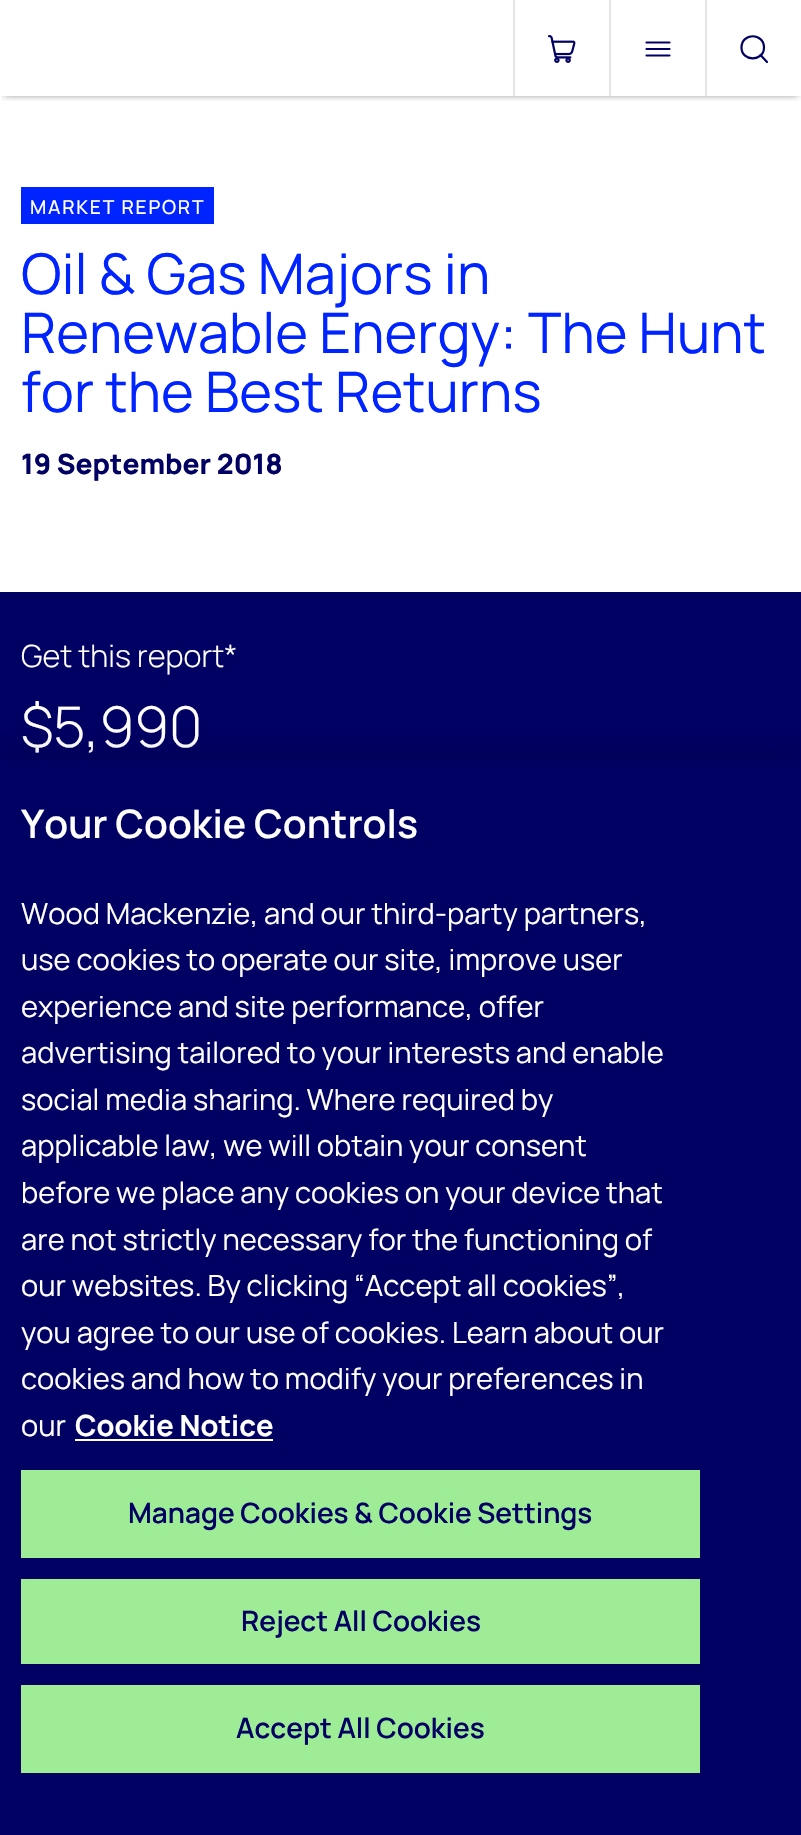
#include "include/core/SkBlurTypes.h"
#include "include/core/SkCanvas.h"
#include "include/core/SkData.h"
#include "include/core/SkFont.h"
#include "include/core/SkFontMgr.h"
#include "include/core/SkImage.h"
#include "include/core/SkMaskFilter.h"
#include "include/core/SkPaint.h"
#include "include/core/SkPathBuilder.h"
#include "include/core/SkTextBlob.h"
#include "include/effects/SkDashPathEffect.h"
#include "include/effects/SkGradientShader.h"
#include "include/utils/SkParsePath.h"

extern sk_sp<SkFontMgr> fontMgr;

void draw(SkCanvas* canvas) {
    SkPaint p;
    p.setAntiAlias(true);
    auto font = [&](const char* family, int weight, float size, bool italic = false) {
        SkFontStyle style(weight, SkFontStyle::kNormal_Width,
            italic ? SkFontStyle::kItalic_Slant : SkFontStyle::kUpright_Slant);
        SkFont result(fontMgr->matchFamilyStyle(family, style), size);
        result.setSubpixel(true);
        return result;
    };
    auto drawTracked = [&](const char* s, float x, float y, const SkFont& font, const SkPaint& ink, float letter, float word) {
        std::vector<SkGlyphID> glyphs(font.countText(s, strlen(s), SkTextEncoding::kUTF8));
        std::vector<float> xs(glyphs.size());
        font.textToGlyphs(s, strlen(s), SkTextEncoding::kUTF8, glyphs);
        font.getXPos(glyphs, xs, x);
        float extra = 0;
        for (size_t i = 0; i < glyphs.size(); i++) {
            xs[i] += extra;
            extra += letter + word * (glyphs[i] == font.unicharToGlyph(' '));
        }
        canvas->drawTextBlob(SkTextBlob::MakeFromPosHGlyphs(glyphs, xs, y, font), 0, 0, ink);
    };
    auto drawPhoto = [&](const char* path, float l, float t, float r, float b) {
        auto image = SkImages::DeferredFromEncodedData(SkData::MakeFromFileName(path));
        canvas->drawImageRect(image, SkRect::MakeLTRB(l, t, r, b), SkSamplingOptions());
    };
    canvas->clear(0xFFFFFFFF);
    canvas->save();
    canvas->clipRect(SkRect::MakeLTRB(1, 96, 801, 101));
    p.setColor(0x80000000);
    p.setMaskFilter(SkMaskFilter::MakeBlur(kNormal_SkBlurStyle, 3.5f));
    canvas->drawRect(SkRect::MakeLTRB(4, 5, 798, 95), p);
    p.setMaskFilter(nullptr);
    canvas->restore();
    p.setColor(0xFFE4E4E4);
    canvas->drawRect(SkRect::MakeLTRB(513, 0, 515, 96), p);
    drawPhoto("media/1.png", 548, 35, 576, 63);
    p.setStyle(SkPaint::kStroke_Style);
    p.setStrokeWidth(2.2f);
    p.setStrokeCap(SkPaint::kRound_Cap);
    p.setStrokeJoin(SkPaint::kRound_Join);
    p.setColor(0xFF010063);
    canvas->drawPath(SkPathBuilder().moveTo(669.5f, 42.5f).lineTo(646.5f, 42.5f).moveTo(669.5f, 49).lineTo(646.5f, 49).moveTo(669.5f, 55.5f).lineTo(646.5f, 55.5f).detach(), p);
    p.setStyle(SkPaint::kFill_Style);
    p.setColor(0xFFE4E4E4);
    canvas->drawRect(SkRect::MakeLTRB(609, 0, 611, 96), p);
    canvas->save();
    canvas->clipPath(SkPathBuilder().moveTo(740, 35).lineTo(768, 35).lineTo(768, 63).lineTo(740, 63).close().detach(), true);
    p.setStyle(SkPaint::kStroke_Style);
    p.setColor(0xFF010063);
    canvas->drawPath(SkPathBuilder().moveTo(741.5f, 47.5f).cubicTo(741.5f, 62, 764, 62, 764, 47.5f).cubicTo(764, 32.5f, 741.5f, 32.5f, 741.5f, 47.5f).close().detach(), p);
    canvas->restore();
    canvas->drawPath(SkPathBuilder().moveTo(767, 62).lineTo(760.5f, 55).detach(), p);
    p.setStyle(SkPaint::kFill_Style);
    p.setColor(0xFFE4E4E4);
    canvas->drawRect(SkRect::MakeLTRB(705, 0, 707, 96), p);
    p.setColor(0xFF0024FF);
    canvas->drawRect(SkRect::MakeLTRB(21, 187, 214, 224), p);
    auto font1 = font("Manrope", 500, 19.25f);
    p.setColor(0xFFFFFFFF);
    drawTracked("MARKET REPORT", 30, 214, font1, p, 1.75f, 0);
    auto font2 = font("Manrope", 400, 56);
    p.setColor(0xFF0024FF);
    {
        const struct { const char* s; float x, y; } items[] = {
            {"Oil & Gas Majors in", 21, 294},
            {"Renewable Energy: The Hunt", 21, 353},
            {"for the Best Returns", 21, 412},
        };
        for (auto [s, x, y] : items) {
            canvas->drawString(s, x, y, font2, p);
        }
    }
    auto font3 = font("Manrope", 800, 28);
    p.setColor(0xFF010063);
    canvas->drawString("19 September 2018", 21, 474, font3, p);
    canvas->drawRect(SkRect::MakeLTRB(0, 592, 801, 760), p);
    auto font4 = font("Manrope", 300, 30.75f);
    p.setColor(0xFFFFFFFF);
    canvas->drawString("Get this report*", 21, 667, font4, p);
    auto font5 = font("Manrope", 300, 56);
    canvas->drawString("$5,990", 21, 747, font5, p);
    p.setColor(0x33000000);
    p.setMaskFilter(SkMaskFilter::MakeBlur(kNormal_SkBlurStyle, 16));
    canvas->drawRect(SkRect::MakeLTRB(0, 760, 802, 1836), p);
    p.setMaskFilter(nullptr);
    p.setColor(0xFF010063);
    canvas->drawRect(SkRect::MakeLTRB(0, 760, 801, 1835), p);
    auto font6 = font("Manrope", 600, 39.25f);
    p.setColor(0xFFFFFFFF);
    canvas->drawString("Your Cookie Controls", 21, 838, font6, p);
    auto font7 = font("Manrope", 400, 29.1f);
    {
        const struct { const char* s; float x, y; } items[] = {
            {"Wood Mackenzie, and our third-party partners,", 21, 924},
            {"use cookies to operate our site, improve user", 21, 970},
            {"experience and site performance, offer", 21, 1017},
            {"advertising tailored to your interests and enable", 21, 1063},
            {"social media sharing. Where required by", 21, 1110},
            {"applicable law, we will obtain your consent", 21, 1156},
            {"before we place any cookies on your device that", 21, 1203},
            {"are not strictly necessary for the functioning of", 21, 1250},
            {"our websites. By clicking “Accept all cookies”,", 21, 1296},
            {"you agree to our use of cookies.", 21, 1343},
            {"Learn about our", 452, 1343},
            {"cookies and how to modify your preferences in", 21, 1389},
            {"our", 21, 1436},
        };
        for (auto [s, x, y] : items) {
            canvas->drawString(s, x, y, font7, p);
        }
    }
    auto font8 = font("Manrope", 700, 29.1f);
    canvas->drawString("Cookie Notice", 75, 1436, font8, p);
    canvas->drawRect(SkRect::MakeLTRB(75, 1439, 273, 1441), p);
    p.setColor(0xFF9EED96);
    canvas->drawRect(SkRect::MakeLTRB(21, 1470, 700, 1558), p);
    auto font9 = font("Manrope", 600, 28);
    p.setColor(0xFF010063);
    canvas->drawString("Manage Cookies & Cookie Settings", 128, 1523, font9, p);
    p.setColor(0xFF9EED96);
    canvas->drawRect(SkRect::MakeLTRB(21, 1579, 700, 1664), p);
    p.setColor(0xFF010063);
    canvas->drawString("Reject All Cookies", 241, 1631, font9, p);
    p.setColor(0xFF9EED96);
    canvas->drawRect(SkRect::MakeLTRB(21, 1685, 700, 1773), p);
    p.setColor(0xFF010063);
    canvas->drawString("Accept All Cookies", 236, 1738, font9, p);
}
